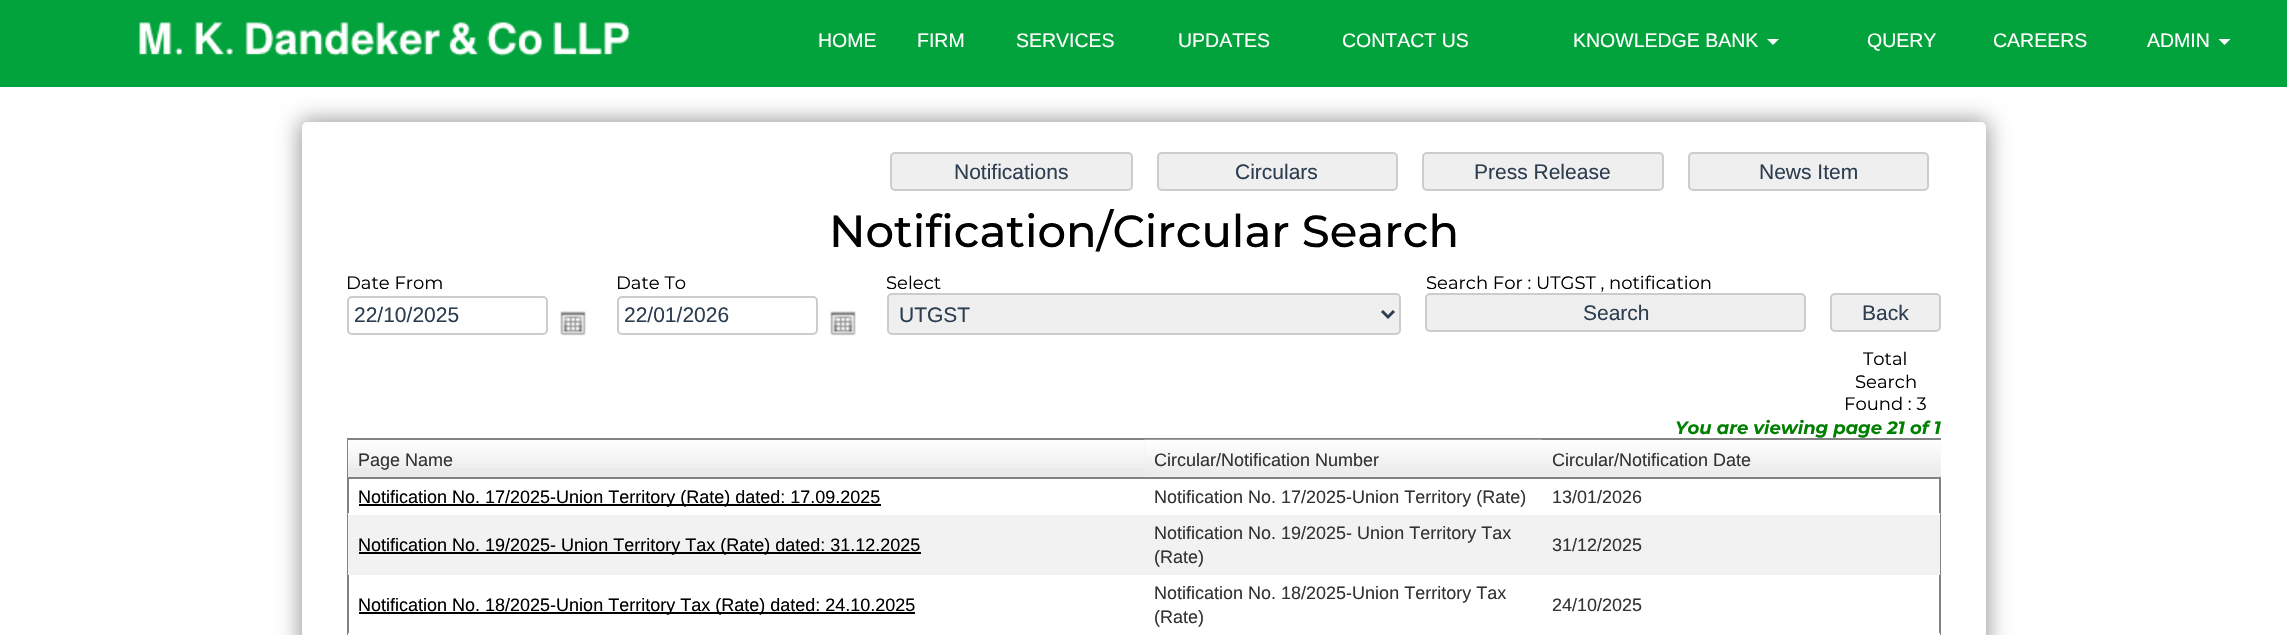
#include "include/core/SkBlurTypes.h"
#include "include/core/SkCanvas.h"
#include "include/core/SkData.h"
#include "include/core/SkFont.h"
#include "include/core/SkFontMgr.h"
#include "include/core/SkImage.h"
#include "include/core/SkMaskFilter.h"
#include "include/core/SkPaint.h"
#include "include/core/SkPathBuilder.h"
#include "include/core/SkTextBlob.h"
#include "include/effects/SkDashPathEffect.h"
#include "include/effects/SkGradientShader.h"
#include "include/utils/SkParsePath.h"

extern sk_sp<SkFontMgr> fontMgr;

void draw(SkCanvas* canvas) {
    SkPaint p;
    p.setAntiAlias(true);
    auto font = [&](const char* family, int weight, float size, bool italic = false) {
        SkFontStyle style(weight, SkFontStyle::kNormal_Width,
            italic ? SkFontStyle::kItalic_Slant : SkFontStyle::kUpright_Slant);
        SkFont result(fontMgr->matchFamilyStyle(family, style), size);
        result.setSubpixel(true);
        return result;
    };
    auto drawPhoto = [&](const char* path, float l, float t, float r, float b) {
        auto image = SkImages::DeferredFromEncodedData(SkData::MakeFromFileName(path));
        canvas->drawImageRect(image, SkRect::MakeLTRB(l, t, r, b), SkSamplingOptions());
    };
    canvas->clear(0xFFFFFFFF);
    p.setColor(0x66000000);
    p.setMaskFilter(SkMaskFilter::MakeBlur(kNormal_SkBlurStyle, 11));
    canvas->drawRoundRect(SkRect::MakeLTRB(300, 120, 1988, 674), 6, 6, p);
    p.setMaskFilter(nullptr);
    p.setColor(0xFF02A33C);
    canvas->drawRect(SkRect::MakeLTRB(0, 0, 2287, 87), p);
    drawPhoto("media/1.png", 139, 22, 631, 56);
    auto font1 = font("Liberation Sans", 400, 19.5f);
    p.setColor(0xFFFFFFFF);
    {
        const struct { const char* s; float x, y; } items[] = {
            {"HOME", 818, 47},
            {"FIRM", 917, 47},
            {"SERVICES", 1016, 47},
            {"UPDATES", 1178, 47},
            {"CONTACT US", 1342, 47},
            {"KNOWLEDGE BANK", 1573, 47},
        };
        for (auto [s, x, y] : items) {
            canvas->drawString(s, x, y, font1, p);
        }
    }
    canvas->drawPath(SkPathBuilder().moveTo(1767, 39).lineTo(1779, 39).lineTo(1773, 45).close().detach(), p);
    {
        const struct { const char* s; float x, y; } items[] = {
            {"QUERY", 1867, 47},
            {"CAREERS", 1993, 47},
            {"ADMIN", 2147, 47},
        };
        for (auto [s, x, y] : items) {
            canvas->drawString(s, x, y, font1, p);
        }
    }
    canvas->drawPath(SkPathBuilder().moveTo(2218.5f, 39).lineTo(2230.5f, 39).lineTo(2224.5f, 45).close().detach(), p);
    canvas->drawRoundRect(SkRect::MakeLTRB(302, 122, 1986, 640), 5, 5, p);
    p.setColor(0xFFEFEFEF);
    canvas->drawRoundRect(SkRect::MakeLTRB(891, 153, 1132, 190), 4, 4, p);
    p.setStyle(SkPaint::kStroke_Style);
    p.setStrokeWidth(2);
    p.setColor(0xFFCCCCCC);
    canvas->drawRoundRect(SkRect::MakeLTRB(891, 153, 1132, 190), 4, 4, p);
    auto font2 = font("Liberation Sans", 400, 21);
    p.setStyle(SkPaint::kFill_Style);
    p.setColor(0xFF2C3E50);
    canvas->drawString("Notifications", 954, 179, font2, p);
    p.setColor(0xFFEFEFEF);
    canvas->drawRoundRect(SkRect::MakeLTRB(1158, 153, 1397, 190), 4, 4, p);
    p.setStyle(SkPaint::kStroke_Style);
    p.setColor(0xFFCCCCCC);
    canvas->drawRoundRect(SkRect::MakeLTRB(1158, 153, 1397, 190), 4, 4, p);
    p.setStyle(SkPaint::kFill_Style);
    p.setColor(0xFF2C3E50);
    canvas->drawString("Circulars", 1235, 179, font2, p);
    p.setColor(0xFFEFEFEF);
    canvas->drawRoundRect(SkRect::MakeLTRB(1423, 153, 1663, 190), 4, 4, p);
    p.setStyle(SkPaint::kStroke_Style);
    p.setColor(0xFFCCCCCC);
    canvas->drawRoundRect(SkRect::MakeLTRB(1423, 153, 1663, 190), 4, 4, p);
    p.setStyle(SkPaint::kFill_Style);
    p.setColor(0xFF2C3E50);
    canvas->drawString("Press Release", 1474, 179, font2, p);
    p.setColor(0xFFEFEFEF);
    canvas->drawRoundRect(SkRect::MakeLTRB(1689, 153, 1928, 190), 4, 4, p);
    p.setStyle(SkPaint::kStroke_Style);
    p.setColor(0xFFCCCCCC);
    canvas->drawRoundRect(SkRect::MakeLTRB(1689, 153, 1928, 190), 4, 4, p);
    p.setStyle(SkPaint::kFill_Style);
    p.setColor(0xFF2C3E50);
    canvas->drawString("News Item", 1759, 179, font2, p);
    auto font3 = font("Montserrat", 500, 45);
    p.setColor(0xFF000000);
    canvas->drawString("Notification/Circular Search", 829, 247, font3, p);
    auto font4 = font("Montserrat", 400, 18);
    canvas->drawString("Date From", 346, 289, font4, p);
    p.setStyle(SkPaint::kStroke_Style);
    p.setColor(0xFFCCCCCC);
    canvas->drawRoundRect(SkRect::MakeLTRB(348, 297, 547, 334), 4, 4, p);
    p.setStyle(SkPaint::kFill_Style);
    p.setColor(0xFF2C3E50);
    canvas->drawString("22/10/2025", 354, 322, font2, p);
    drawPhoto("media/2.png", 560, 311, 586, 336);
    p.setColor(0xFF000000);
    canvas->drawString("Date To", 616, 289, font4, p);
    p.setStyle(SkPaint::kStroke_Style);
    p.setColor(0xFFCCCCCC);
    canvas->drawRoundRect(SkRect::MakeLTRB(618, 297, 817, 334), 4, 4, p);
    p.setStyle(SkPaint::kFill_Style);
    p.setColor(0xFF2C3E50);
    canvas->drawString("22/01/2026", 624, 322, font2, p);
    drawPhoto("media/2.png", 830, 311, 856, 336);
    p.setColor(0xFF000000);
    canvas->drawString("Select", 886, 289, font4, p);
    p.setColor(0xFFEFEFEF);
    canvas->drawRoundRect(SkRect::MakeLTRB(888, 294, 1400, 334), 4, 4, p);
    p.setStyle(SkPaint::kStroke_Style);
    p.setColor(0xFFCCCCCC);
    canvas->drawRoundRect(SkRect::MakeLTRB(888, 294, 1400, 334), 4, 4, p);
    p.setStrokeWidth(3);
    p.setColor(0xFF2C3E50);
    canvas->drawPath(SkPathBuilder().moveTo(1382, 311).lineTo(1388, 317).lineTo(1394, 311).detach(), p);
    p.setStyle(SkPaint::kFill_Style);
    canvas->drawString("UTGST", 899, 322, font2, p);
    p.setColor(0xFF000000);
    canvas->drawString("Search For : UTGST , notification", 1426, 289, font4, p);
    p.setColor(0xFFEFEFEF);
    canvas->drawRoundRect(SkRect::MakeLTRB(1426, 294, 1805, 331), 4, 4, p);
    p.setStyle(SkPaint::kStroke_Style);
    p.setStrokeWidth(2);
    p.setColor(0xFFCCCCCC);
    canvas->drawRoundRect(SkRect::MakeLTRB(1426, 294, 1805, 331), 4, 4, p);
    p.setStyle(SkPaint::kFill_Style);
    p.setColor(0xFF2C3E50);
    canvas->drawString("Search", 1583, 320, font2, p);
    p.setColor(0xFFEFEFEF);
    canvas->drawRoundRect(SkRect::MakeLTRB(1831, 294, 1940, 331), 4, 4, p);
    p.setStyle(SkPaint::kStroke_Style);
    p.setColor(0xFFCCCCCC);
    canvas->drawRoundRect(SkRect::MakeLTRB(1831, 294, 1940, 331), 4, 4, p);
    p.setStyle(SkPaint::kFill_Style);
    p.setColor(0xFF2C3E50);
    canvas->drawString("Back", 1862, 320, font2, p);
    p.setColor(0xFF000000);
    {
        const struct { const char* s; float x, y; } items[] = {
            {"Total", 1863, 365},
            {"Search", 1855, 388},
            {"Found : 3", 1844, 410},
        };
        for (auto [s, x, y] : items) {
            canvas->drawString(s, x, y, font4, p);
        }
    }
    auto font5 = font("Montserrat", 700, 18, true);
    p.setColor(0xFF008000);
    canvas->drawString("You are viewing page 21 of 1", 1675, 434, font5, p);
    p.setStyle(SkPaint::kStroke_Style);
    p.setColor(0xFF828282);
    canvas->drawRect(SkRect::MakeLTRB(348, 439, 1940, 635), p);
    p.setStyle(SkPaint::kFill_Style);
    p.setColor(0xFFEAEAEA);
    canvas->drawRect(SkRect::MakeLTRB(348, 440, 1145, 477), p);
    drawPhoto("media/3.png", 348, 440, 1145, 468);
    p.setColor(0xFF828282);
    canvas->drawRect(SkRect::MakeLTRB(348, 477, 1145, 479), p);
    auto font6 = font("Liberation Sans", 400, 18);
    p.setColor(0xFF333333);
    canvas->drawString("Page Name", 358, 466, font6, p);
    drawPhoto("media/4.png", 1144, 439, 1542, 478);
    p.setColor(0xFF828282);
    canvas->drawRect(SkRect::MakeLTRB(1145, 477, 1542, 479), p);
    p.setColor(0xFF333333);
    canvas->drawString("Circular/Notification Number", 1154, 466, font6, p);
    drawPhoto("media/5.png", 1542, 440, 1941, 478);
    p.setColor(0xFF828282);
    canvas->drawRect(SkRect::MakeLTRB(1542, 477, 1940, 479), p);
    p.setColor(0xFF333333);
    canvas->drawString("Circular/Notification Date", 1552, 466, font6, p);
    p.setColor(0xFFFFFFFF);
    canvas->drawRect(SkRect::MakeLTRB(348, 513, 349, 515), p);
    p.setColor(0xFF000000);
    canvas->drawRect(SkRect::MakeLTRB(359, 504, 881, 506), p);
    canvas->drawString("Notification No. 17/2025-Union Territory (Rate) dated: 17.09.2025", 358, 503, font6, p);
    p.setColor(0xFF333333);
    canvas->drawString("Notification No. 17/2025-Union Territory (Rate)", 1154, 503, font6, p);
    p.setColor(0xFFFFFFFF);
    canvas->drawRect(SkRect::MakeLTRB(1939, 513, 1940, 515), p);
    p.setColor(0xFF333333);
    canvas->drawString("13/01/2026", 1552, 503, font6, p);
    p.setColor(0xFFF2F2F2);
    canvas->drawRect(SkRect::MakeLTRB(348, 515, 1940, 575), p);
    p.setColor(0xFF000000);
    canvas->drawRect(SkRect::MakeLTRB(359, 552, 921, 554), p);
    canvas->drawString("Notification No. 19/2025- Union Territory Tax (Rate) dated: 31.12.2025", 358, 551, font6, p);
    p.setColor(0xFF333333);
    {
        const struct { const char* s; float x, y; } items[] = {
            {"Notification No. 19/2025- Union Territory Tax", 1154, 539},
            {"(Rate)", 1154, 563},
            {"31/12/2025", 1552, 551},
        };
        for (auto [s, x, y] : items) {
            canvas->drawString(s, x, y, font6, p);
        }
    }
    p.setColor(0xFFFFFFFF);
    canvas->drawRect(SkRect::MakeLTRB(348, 633, 1145, 635), p);
    p.setColor(0xFF000000);
    canvas->drawRect(SkRect::MakeLTRB(359, 612, 915, 614), p);
    canvas->drawString("Notification No. 18/2025-Union Territory Tax (Rate) dated: 24.10.2025", 358, 611, font6, p);
    p.setColor(0xFFFFFFFF);
    canvas->drawRect(SkRect::MakeLTRB(1145, 634, 1542, 635), p);
    p.setColor(0xFF333333);
    canvas->drawString("Notification No. 18/2025-Union Territory Tax", 1154, 599, font6, p);
    canvas->drawString("(Rate)", 1154, 623, font6, p);
    p.setColor(0xFFFFFFFF);
    canvas->drawRect(SkRect::MakeLTRB(1542, 633, 1940, 635), p);
    p.setColor(0xFF333333);
    canvas->drawString("24/10/2025", 1552, 611, font6, p);
}
